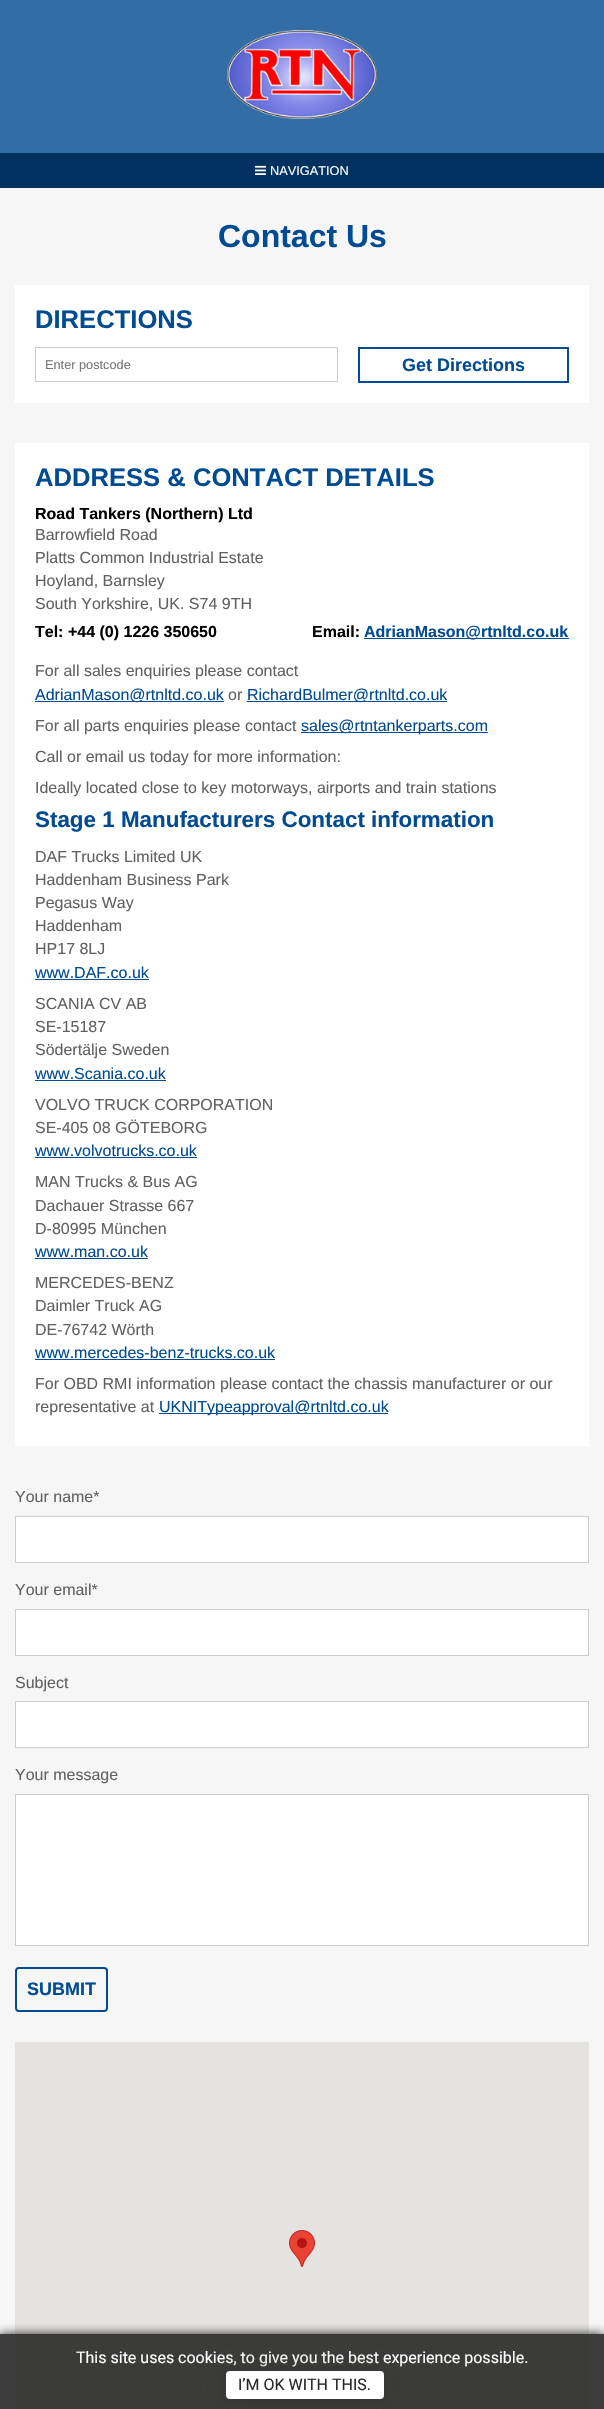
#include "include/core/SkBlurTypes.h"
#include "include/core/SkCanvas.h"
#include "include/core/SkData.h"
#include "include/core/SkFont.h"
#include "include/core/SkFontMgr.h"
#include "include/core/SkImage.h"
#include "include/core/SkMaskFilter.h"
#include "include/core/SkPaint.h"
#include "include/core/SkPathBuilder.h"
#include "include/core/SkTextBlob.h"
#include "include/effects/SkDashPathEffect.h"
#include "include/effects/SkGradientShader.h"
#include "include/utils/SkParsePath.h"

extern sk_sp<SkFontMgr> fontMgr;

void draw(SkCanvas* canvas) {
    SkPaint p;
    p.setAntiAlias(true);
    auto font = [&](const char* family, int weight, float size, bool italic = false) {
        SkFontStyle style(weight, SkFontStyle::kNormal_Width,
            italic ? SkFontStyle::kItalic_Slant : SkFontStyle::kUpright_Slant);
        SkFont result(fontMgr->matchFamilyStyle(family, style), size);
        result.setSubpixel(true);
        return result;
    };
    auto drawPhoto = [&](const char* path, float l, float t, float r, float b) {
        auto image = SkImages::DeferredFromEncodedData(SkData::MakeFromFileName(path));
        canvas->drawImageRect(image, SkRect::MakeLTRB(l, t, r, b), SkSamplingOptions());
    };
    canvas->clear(0xFFF6F6F6);
    p.setColor(0xFF3D3D3D);
    canvas->drawRect(SkRect::MakeLTRB(0, 2334, 604, 2409), p);
    p.setColor(0xFF326DA6);
    canvas->drawRect(SkRect::MakeLTRB(0, 0, 604, 153), p);
    drawPhoto("media/1.png", 227, 30, 377, 119);
    p.setColor(0xFF01315F);
    canvas->drawRect(SkRect::MakeLTRB(0, 153, 604, 188), p);
    drawPhoto("media/2.png", 255, 165, 266, 175);
    auto font1 = font("Liberation Sans", 400, 12.75f);
    p.setColor(0xFFFFFFFF);
    canvas->drawString("NAVIGATION", 270, 175, font1, p);
    auto font2 = font("Liberation Sans", 700, 32);
    p.setColor(0xFF014B92);
    canvas->drawString("Contact Us", 218, 247, font2, p);
    p.setColor(0xFFFFFFFF);
    canvas->drawRect(SkRect::MakeLTRB(15, 285, 589, 403), p);
    auto font3 = font("Liberation Sans", 700, 25.6f);
    p.setColor(0xFF014B92);
    canvas->drawString("DIRECTIONS", 35, 328, font3, p);
    p.setStyle(SkPaint::kStroke_Style);
    p.setStrokeWidth(1);
    p.setColor(0xFFCCCCCC);
    canvas->drawRect(SkRect::MakeLTRB(35.5f, 347.5f, 337.5f, 381.5f), p);
    p.setStyle(SkPaint::kFill_Style);
    p.setColor(0xFF757575);
    canvas->drawString("Enter postcode", 45, 369, font1, p);
    p.setStyle(SkPaint::kStroke_Style);
    p.setStrokeWidth(2);
    p.setColor(0xFF014B92);
    canvas->drawRect(SkRect::MakeLTRB(359, 348, 568, 382), p);
    auto font4 = font("Liberation Sans", 700, 18);
    p.setStyle(SkPaint::kFill_Style);
    canvas->drawString("Get Directions", 402, 371, font4, p);
    p.setColor(0xFFFFFFFF);
    canvas->drawRect(SkRect::MakeLTRB(15, 443, 589, 1446), p);
    p.setColor(0xFF014B92);
    canvas->drawString("ADDRESS & CONTACT DETAILS", 35, 486, font3, p);
    auto font5 = font("Liberation Sans", 700, 16);
    p.setColor(0xFF000000);
    canvas->drawString("Road Tankers (Northern) Ltd", 35, 519, font5, p);
    auto font6 = font("Liberation Sans", 400, 16);
    p.setColor(0xFF616161);
    {
        const struct { const char* s; float x, y; } items[] = {
            {"Barrowfield Road", 35, 540},
            {"Platts Common Industrial Estate", 35, 563},
            {"Hoyland, Barnsley", 35, 586},
            {"South Yorkshire, UK. S74 9TH", 35, 609},
        };
        for (auto [s, x, y] : items) {
            canvas->drawString(s, x, y, font6, p);
        }
    }
    p.setColor(0xFF000000);
    canvas->drawString("Tel: +44 (0) 1226 350650", 35, 637, font5, p);
    canvas->drawString("Email:", 312, 637, font5, p);
    p.setColor(0xFF014B92);
    canvas->drawRect(SkRect::MakeLTRB(364, 638, 569, 639), p);
    canvas->drawString("AdrianMason@rtnltd.co.uk", 364, 637, font5, p);
    p.setColor(0xFF616161);
    canvas->drawString("For all sales enquiries please contact", 35, 676, font6, p);
    p.setColor(0xFF014B92);
    canvas->drawRect(SkRect::MakeLTRB(35, 701, 224, 702), p);
    canvas->drawString("AdrianMason@rtnltd.co.uk", 35, 700, font6, p);
    p.setColor(0xFF616161);
    canvas->drawString("or", 228, 700, font6, p);
    p.setColor(0xFF014B92);
    canvas->drawRect(SkRect::MakeLTRB(247, 701, 447, 702), p);
    canvas->drawString("RichardBulmer@rtnltd.co.uk", 247, 700, font6, p);
    p.setColor(0xFF616161);
    canvas->drawString("For all parts enquiries please contact", 35, 731, font6, p);
    p.setColor(0xFF014B92);
    canvas->drawRect(SkRect::MakeLTRB(301, 732, 488, 733), p);
    canvas->drawString("sales@rtntankerparts.com", 301, 731, font6, p);
    p.setColor(0xFF616161);
    canvas->drawString("Call or email us today for more information:", 35, 762, font6, p);
    canvas->drawString("Ideally located close to key motorways, airports and train stations", 35, 793, font6, p);
    auto font7 = font("Liberation Sans", 700, 22.4f);
    p.setColor(0xFF014B92);
    canvas->drawString("Stage 1 Manufacturers Contact information", 35, 827, font7, p);
    p.setColor(0xFF616161);
    {
        const struct { const char* s; float x, y; } items[] = {
            {"DAF Trucks Limited UK", 35, 862},
            {"Haddenham Business Park", 35, 885},
            {"Pegasus Way", 35, 908},
            {"Haddenham", 35, 931},
            {"HP17 8LJ", 35, 954},
        };
        for (auto [s, x, y] : items) {
            canvas->drawString(s, x, y, font6, p);
        }
    }
    p.setColor(0xFF014B92);
    canvas->drawString("www.DAF.co.uk", 35, 978, font6, p);
    canvas->drawRect(SkRect::MakeLTRB(35, 979, 149, 980), p);
    p.setColor(0xFF616161);
    {
        const struct { const char* s; float x, y; } items[] = {
            {"SCANIA CV AB", 35, 1009},
            {"SE-15187", 35, 1032},
            {"Södertälje Sweden", 35, 1055},
        };
        for (auto [s, x, y] : items) {
            canvas->drawString(s, x, y, font6, p);
        }
    }
    p.setColor(0xFF014B92);
    canvas->drawString("www.Scania.co.uk", 35, 1079, font6, p);
    canvas->drawRect(SkRect::MakeLTRB(35, 1080, 166, 1081), p);
    p.setColor(0xFF616161);
    canvas->drawString("VOLVO TRUCK CORPORATION", 35, 1110, font6, p);
    canvas->drawString("SE-405 08 GÖTEBORG", 35, 1133, font6, p);
    p.setColor(0xFF014B92);
    canvas->drawString("www.volvotrucks.co.uk", 35, 1156, font6, p);
    canvas->drawRect(SkRect::MakeLTRB(35, 1157, 197, 1158), p);
    p.setColor(0xFF616161);
    {
        const struct { const char* s; float x, y; } items[] = {
            {"MAN Trucks & Bus AG", 35, 1187},
            {"Dachauer Strasse 667", 35, 1211},
            {"D-80995 München", 35, 1234},
        };
        for (auto [s, x, y] : items) {
            canvas->drawString(s, x, y, font6, p);
        }
    }
    p.setColor(0xFF014B92);
    canvas->drawString("www.man.co.uk", 35, 1257, font6, p);
    canvas->drawRect(SkRect::MakeLTRB(35, 1258, 148, 1259), p);
    p.setColor(0xFF616161);
    {
        const struct { const char* s; float x, y; } items[] = {
            {"MERCEDES-BENZ", 35, 1288},
            {"Daimler Truck AG", 35, 1311},
            {"DE-76742 Wörth", 35, 1335},
        };
        for (auto [s, x, y] : items) {
            canvas->drawString(s, x, y, font6, p);
        }
    }
    p.setColor(0xFF014B92);
    canvas->drawString("www.mercedes-benz-trucks.co.uk", 35, 1358, font6, p);
    canvas->drawRect(SkRect::MakeLTRB(35, 1359, 275, 1360), p);
    p.setColor(0xFF616161);
    canvas->drawString("For OBD RMI information please contact the chassis manufacturer or our", 35, 1389, font6, p);
    canvas->drawString("representative at", 35, 1412, font6, p);
    p.setColor(0xFF014B92);
    canvas->drawRect(SkRect::MakeLTRB(159, 1413, 388, 1414), p);
    canvas->drawString("UKNITypeapproval@rtnltd.co.uk", 159, 1412, font6, p);
    p.setColor(0xFF616161);
    canvas->drawString("Your name*", 15, 1502, font6, p);
    p.setColor(0xFFFFFFFF);
    canvas->drawRect(SkRect::MakeLTRB(15.5f, 1516.5f, 588.5f, 1562.5f), p);
    p.setStyle(SkPaint::kStroke_Style);
    p.setStrokeWidth(1);
    p.setColor(0xFFCCCCCC);
    canvas->drawRect(SkRect::MakeLTRB(15.5f, 1516.5f, 588.5f, 1562.5f), p);
    p.setStyle(SkPaint::kFill_Style);
    p.setColor(0xFF616161);
    canvas->drawString("Your email*", 15, 1595, font6, p);
    p.setColor(0xFFFFFFFF);
    canvas->drawRect(SkRect::MakeLTRB(15.5f, 1609.5f, 588.5f, 1655.5f), p);
    p.setStyle(SkPaint::kStroke_Style);
    p.setColor(0xFFCCCCCC);
    canvas->drawRect(SkRect::MakeLTRB(15.5f, 1609.5f, 588.5f, 1655.5f), p);
    p.setStyle(SkPaint::kFill_Style);
    p.setColor(0xFF616161);
    canvas->drawString("Subject", 15, 1688, font6, p);
    p.setColor(0xFFFFFFFF);
    canvas->drawRect(SkRect::MakeLTRB(15.5f, 1701.5f, 588.5f, 1747.5f), p);
    p.setStyle(SkPaint::kStroke_Style);
    p.setColor(0xFFCCCCCC);
    canvas->drawRect(SkRect::MakeLTRB(15.5f, 1701.5f, 588.5f, 1747.5f), p);
    p.setStyle(SkPaint::kFill_Style);
    p.setColor(0xFF616161);
    canvas->drawString("Your message", 15, 1780, font6, p);
    p.setColor(0xFFFFFFFF);
    canvas->drawRect(SkRect::MakeLTRB(15.5f, 1794.5f, 588.5f, 1945.5f), p);
    p.setStyle(SkPaint::kStroke_Style);
    p.setColor(0xFFCCCCCC);
    canvas->drawRect(SkRect::MakeLTRB(15.5f, 1794.5f, 588.5f, 1945.5f), p);
    p.setStrokeWidth(2);
    p.setColor(0xFF014B92);
    canvas->drawRoundRect(SkRect::MakeLTRB(16, 1968, 107, 2011), 3, 3, p);
    p.setStyle(SkPaint::kFill_Style);
    canvas->drawString("SUBMIT", 27, 1995, font4, p);
    p.setColor(0xFFE5E3DF);
    canvas->drawRect(SkRect::MakeLTRB(15, 2042, 589, 2334), p);
    p.setColor(0xFF3B3B3A);
    canvas->drawRect(SkRect::MakeLTRB(15, 2334, 589, 2409), p);
    drawPhoto("media/3.png", 289, 2230, 315, 2267);
    canvas->save();
    canvas->clipRect(SkRect::MakeLTRB(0, 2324, 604, 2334));
    p.setColor(0xFF282828);
    p.setMaskFilter(SkMaskFilter::MakeBlur(kNormal_SkBlurStyle, 5));
    canvas->drawRect(SkRect::MakeLTRB(0, 2334, 604, 2409), p);
    p.setMaskFilter(nullptr);
    canvas->restore();
    auto font8 = font("Roboto", 400, 16);
    p.setColor(0xFFFFFFFF);
    canvas->drawString("This site uses cookies, to give you the best experience possible.", 76, 2363, font8, p);
    p.setColor(0x80282828);
    p.setMaskFilter(SkMaskFilter::MakeBlur(kNormal_SkBlurStyle, 10));
    canvas->drawRoundRect(SkRect::MakeLTRB(226, 2371, 384, 2399), 4, 4, p);
    p.setMaskFilter(nullptr);
    p.setColor(0xFFFFFFFF);
    canvas->drawRoundRect(SkRect::MakeLTRB(226, 2371, 384, 2399), 4, 4, p);
    p.setColor(0xFF282828);
    canvas->drawString("I’M OK WITH THIS.", 238, 2390, font8, p);
}
